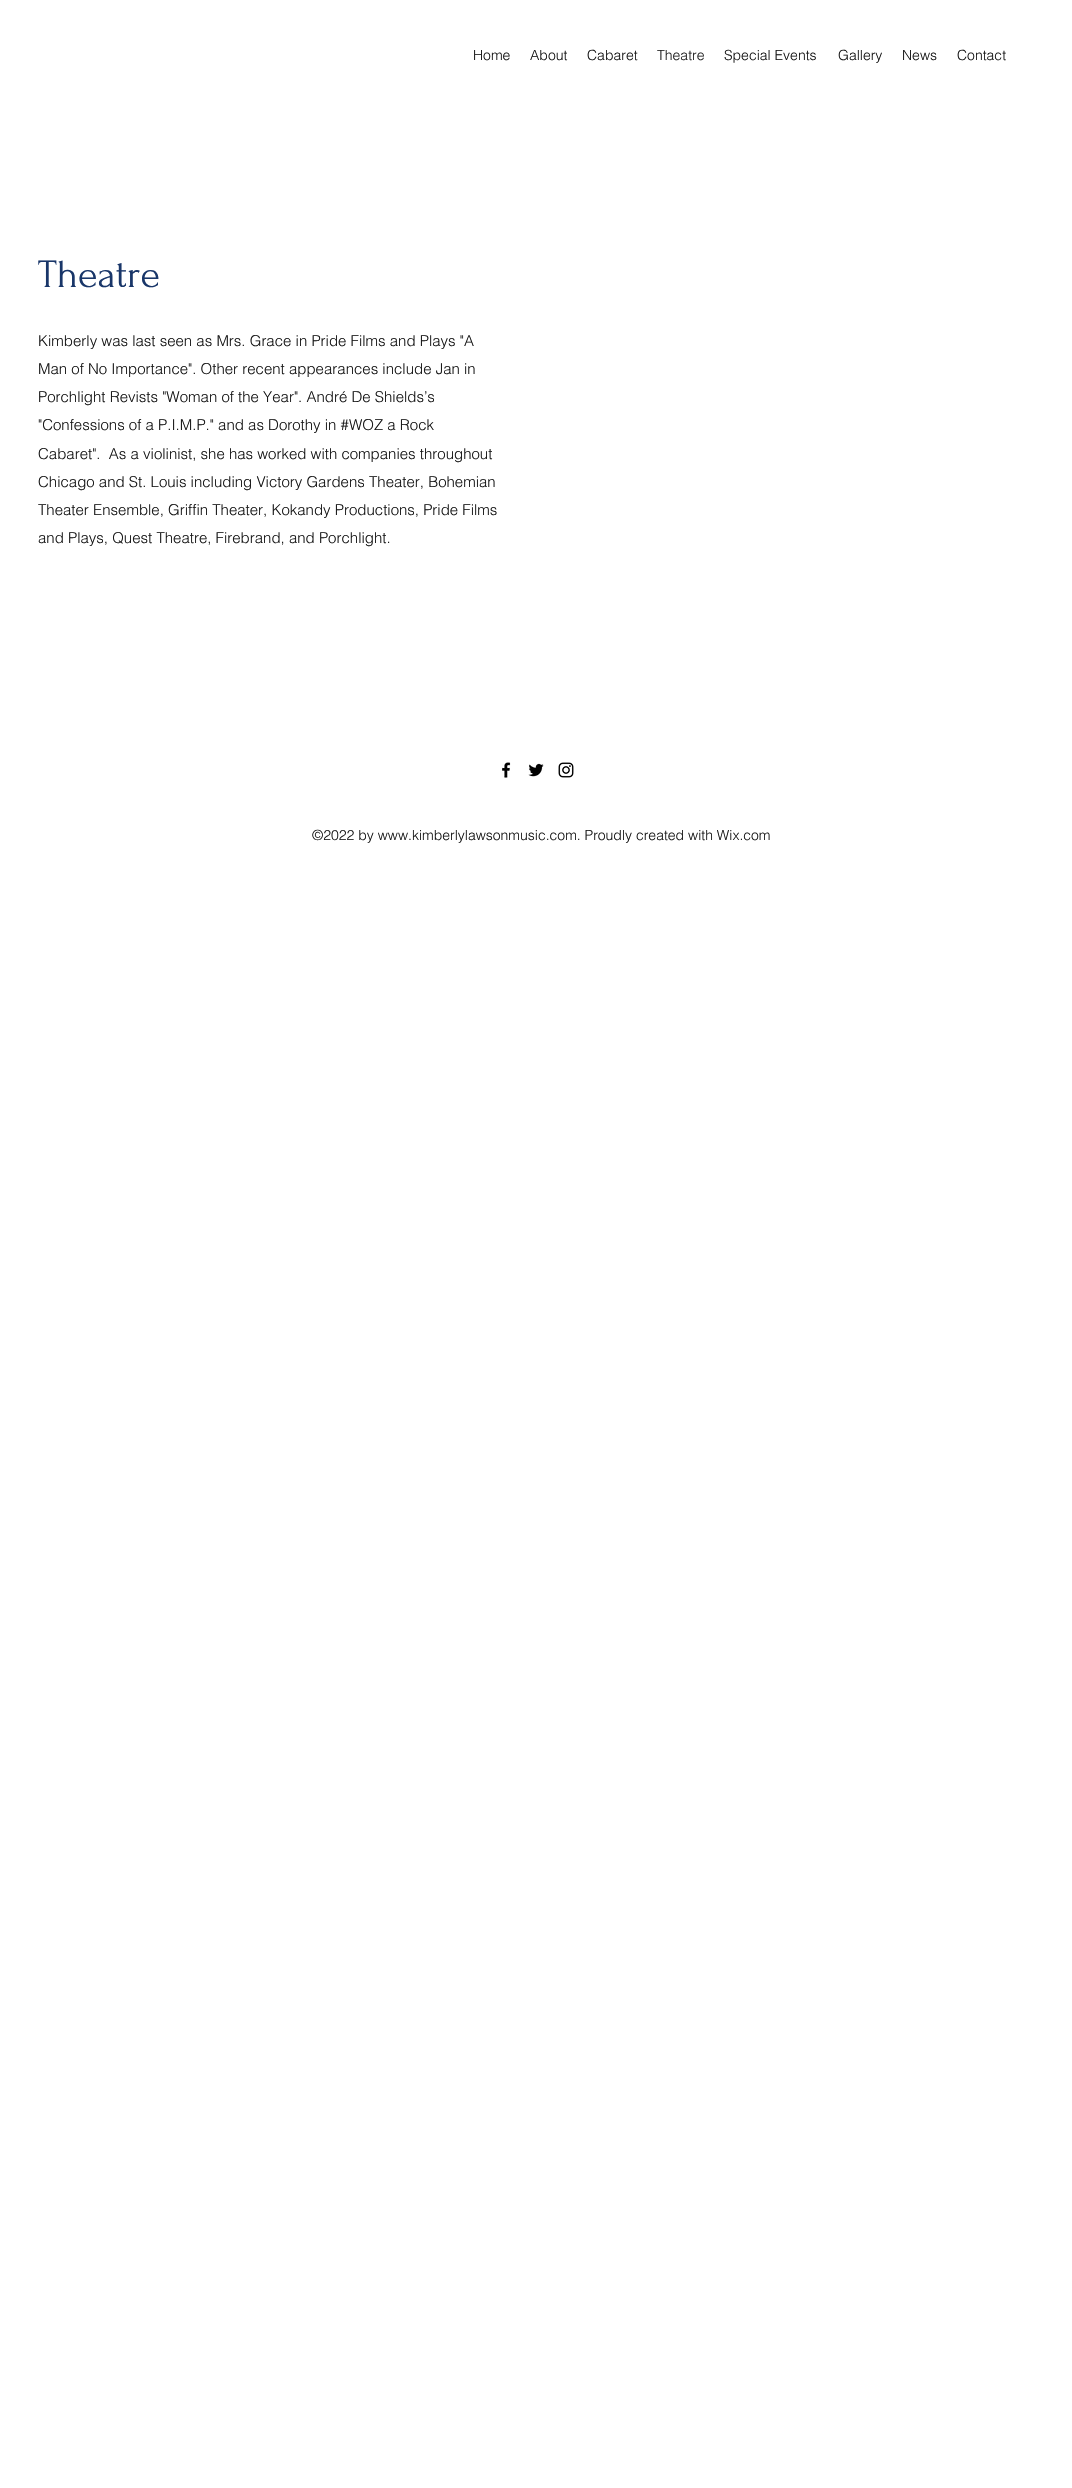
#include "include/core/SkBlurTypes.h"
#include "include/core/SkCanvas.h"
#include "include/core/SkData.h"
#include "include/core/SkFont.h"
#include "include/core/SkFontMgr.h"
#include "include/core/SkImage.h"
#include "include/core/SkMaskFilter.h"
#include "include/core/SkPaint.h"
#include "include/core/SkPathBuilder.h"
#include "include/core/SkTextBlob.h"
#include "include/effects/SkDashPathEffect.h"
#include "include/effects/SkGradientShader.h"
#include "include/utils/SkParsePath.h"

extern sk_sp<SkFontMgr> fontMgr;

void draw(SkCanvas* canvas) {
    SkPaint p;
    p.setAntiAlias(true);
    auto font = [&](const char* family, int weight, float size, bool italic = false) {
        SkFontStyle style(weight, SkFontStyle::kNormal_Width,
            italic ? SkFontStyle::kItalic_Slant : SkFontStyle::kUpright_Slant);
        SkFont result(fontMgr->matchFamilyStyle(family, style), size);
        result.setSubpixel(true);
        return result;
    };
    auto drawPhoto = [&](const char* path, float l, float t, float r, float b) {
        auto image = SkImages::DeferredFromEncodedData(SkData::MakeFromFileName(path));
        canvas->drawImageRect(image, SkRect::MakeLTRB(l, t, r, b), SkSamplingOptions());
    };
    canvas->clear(0xFFFFFFFF);
    auto font1 = font("helvetica", 300, 14);
    p.setColor(0xFF181818);
    {
        const struct { const char* s; float x, y; } items[] = {
            {"Home", 473, 60},
            {"About", 530, 60},
            {"Cabaret", 587, 60},
        };
        for (auto [s, x, y] : items) {
            canvas->drawString(s, x, y, font1, p);
        }
    }
    p.setColor(0xFF222222);
    canvas->drawString("Theatre", 657, 60, font1, p);
    p.setColor(0xFF181818);
    {
        const struct { const char* s; float x, y; } items[] = {
            {"Special Events", 724, 60},
            {"Gallery", 838, 60},
            {"News", 902, 60},
            {"Contact", 957, 60},
        };
        for (auto [s, x, y] : items) {
            canvas->drawString(s, x, y, font1, p);
        }
    }
    auto font2 = font("Forum", 400, 40);
    p.setColor(0xFF193669);
    canvas->drawString("Theatre", 38, 287, font2, p);
    auto font3 = font("helvetica", 300, 15);
    p.setColor(0xFF181818);
    {
        const struct { const char* s; float x, y; } items[] = {
            {"Kimberly was last seen as Mrs. Grace in Pride Films and Plays \"A", 38, 346},
            {"Man of No Importance\". Other recent appearances include Jan in", 38, 374},
            {"Porchlight Revists \"Woman of the Year\". André De Shields’s", 38, 402},
            {"\"Confessions of a P.I.M.P.\" and as Dorothy in #WOZ a Rock", 38, 430},
            {"Cabaret\".  As a violinist, she has worked with companies throughout", 38, 459},
            {"Chicago and St. Louis including Victory Gardens Theater, Bohemian", 38, 487},
            {"Theater Ensemble, Griffin Theater, Kokandy Productions, Pride Films", 38, 515},
            {"and Plays, Quest Theatre, Firebrand, and Porchlight.", 38, 543},
        };
        for (auto [s, x, y] : items) {
            canvas->drawString(s, x, y, font3, p);
        }
    }
    drawPhoto("media/1.png", 502, 762, 511, 778);
    drawPhoto("media/2.png", 528, 763, 544, 777);
    drawPhoto("media/3.png", 558, 762, 574, 778);
    canvas->drawString("©2022 by www.kimberlylawsonmusic.com. Proudly created with Wix.com", 312, 840, font1, p);
}
